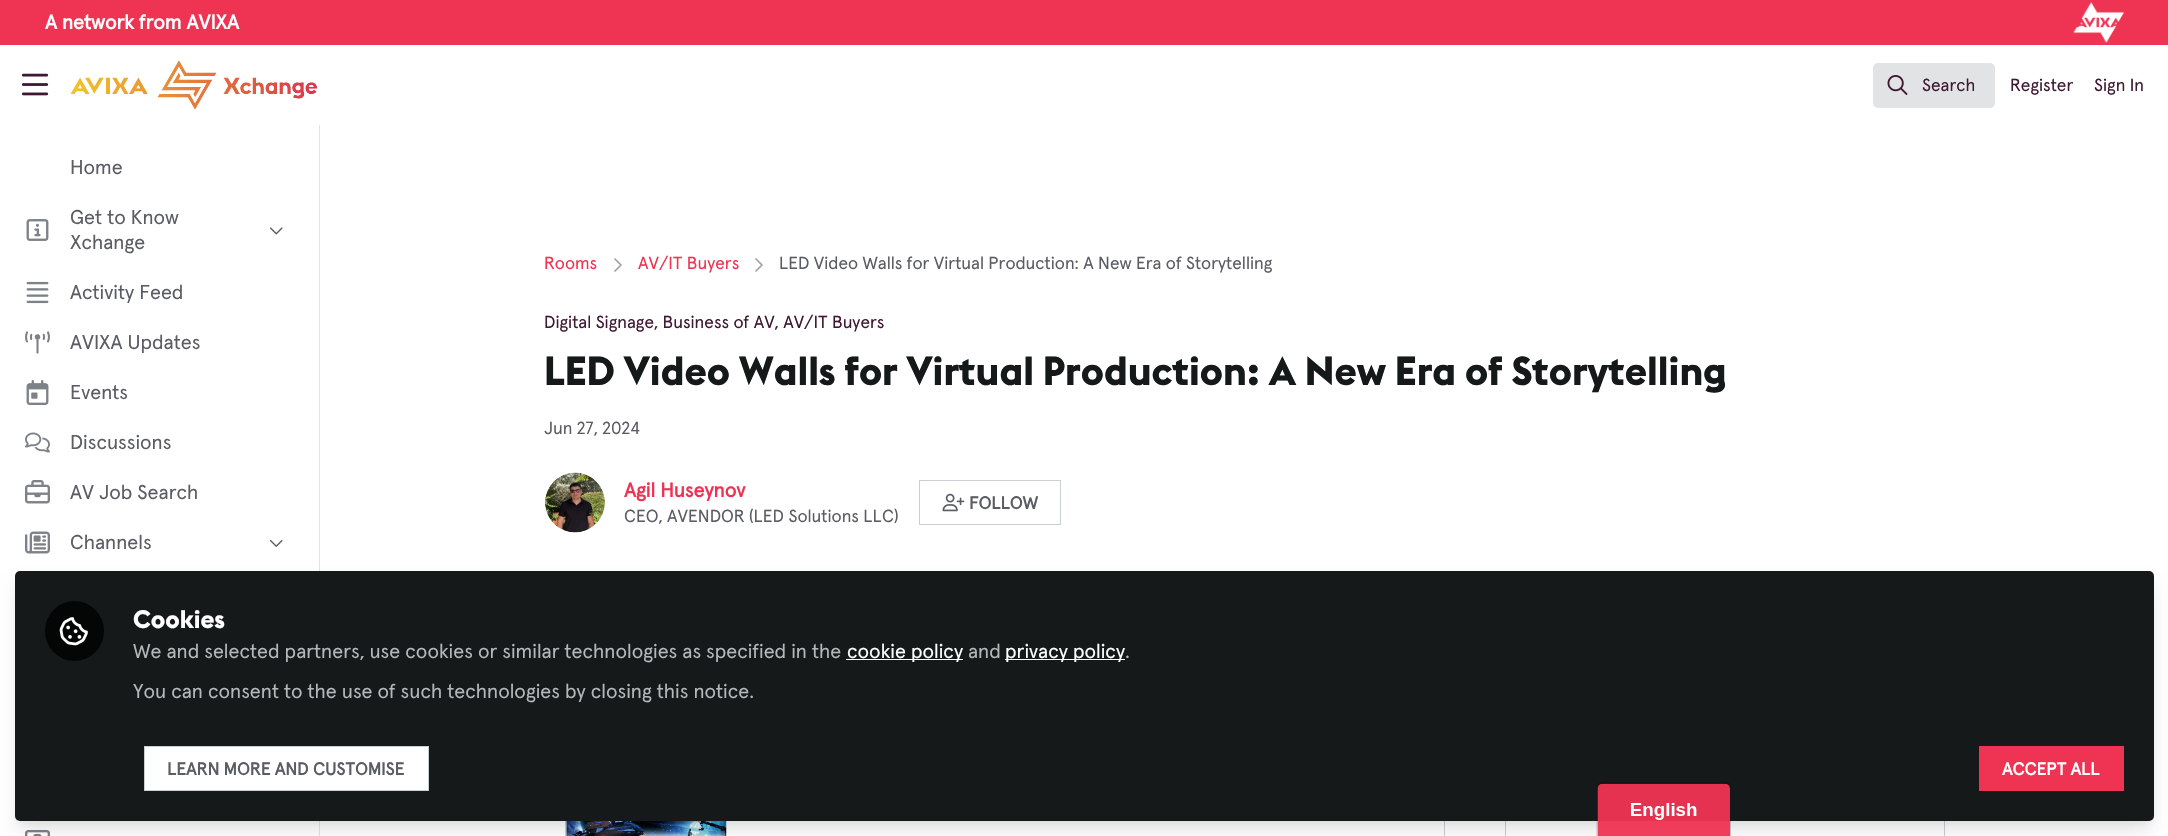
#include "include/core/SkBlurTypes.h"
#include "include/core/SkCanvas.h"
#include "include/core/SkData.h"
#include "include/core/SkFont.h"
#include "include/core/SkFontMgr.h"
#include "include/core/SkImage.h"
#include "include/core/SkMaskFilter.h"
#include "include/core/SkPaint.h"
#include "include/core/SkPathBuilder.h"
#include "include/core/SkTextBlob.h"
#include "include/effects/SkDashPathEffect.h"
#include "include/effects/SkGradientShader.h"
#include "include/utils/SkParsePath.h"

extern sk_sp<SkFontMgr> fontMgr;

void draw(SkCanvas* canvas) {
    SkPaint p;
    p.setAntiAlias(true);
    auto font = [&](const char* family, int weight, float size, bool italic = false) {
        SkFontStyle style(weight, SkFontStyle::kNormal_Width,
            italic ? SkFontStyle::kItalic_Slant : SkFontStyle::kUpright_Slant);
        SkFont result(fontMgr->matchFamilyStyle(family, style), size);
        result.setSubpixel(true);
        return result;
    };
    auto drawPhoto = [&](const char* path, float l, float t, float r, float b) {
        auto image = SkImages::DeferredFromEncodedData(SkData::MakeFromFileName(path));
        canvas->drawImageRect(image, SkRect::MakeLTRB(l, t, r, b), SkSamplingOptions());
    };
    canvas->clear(0xFFFFFFFF);
    p.setColor(0xFFEE3353);
    canvas->drawRect(SkRect::MakeLTRB(0, 0, 2168, 45), p);
    auto font1 = font("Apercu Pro", 700, 20);
    p.setColor(0xFFFFFFFF);
    canvas->drawString("A network from AVIXA", 45, 29, font1, p);
    drawPhoto("media/1.png", 2073, 2, 2124, 43);
    drawPhoto("media/2.png", 21, 73, 49, 96);
    drawPhoto("media/3.png", 70, 60, 317, 110);
    p.setColor(0xFFE2E3E4);
    canvas->drawRoundRect(SkRect::MakeLTRB(1873, 63, 1995, 108), 5, 5, p);
    drawPhoto("media/4.png", 1887, 75, 1908, 95);
    auto font2 = font("Apercu Pro", 400, 17.5f);
    p.setColor(0xFF3F1833);
    {
        const struct { const char* s; float x, y; } items[] = {
            {"Search", 1922, 91},
            {"Register", 2010, 91},
            {"Sign In", 2094, 91},
        };
        for (auto [s, x, y] : items) {
            canvas->drawString(s, x, y, font2, p);
        }
    }
    p.setColor(0xFFE2E3E4);
    canvas->drawRect(SkRect::MakeLTRB(319, 125, 320, 836), p);
    auto font3 = font("Apercu Pro", 400, 20);
    p.setColor(0xFF5A5D63);
    canvas->drawString("Home", 70, 174, font3, p);
    drawPhoto("media/5.png", 26, 219, 49, 241);
    canvas->drawString("Get to Know", 70, 224, font3, p);
    canvas->drawString("Xchange", 70, 249, font3, p);
    drawPhoto("media/6.png", 270, 227, 283, 235);
    drawPhoto("media/7.png", 26, 281, 49, 304);
    canvas->drawString("Activity Feed", 70, 299, font3, p);
    drawPhoto("media/8.png", 25, 331, 50, 354);
    canvas->drawString("AVIXA Updates", 70, 349, font3, p);
    drawPhoto("media/9.png", 26, 380, 49, 405);
    canvas->drawString("Events", 70, 399, font3, p);
    drawPhoto("media/10.png", 25, 432, 50, 453);
    canvas->drawString("Discussions", 70, 449, font3, p);
    drawPhoto("media/11.png", 25, 480, 50, 504);
    canvas->drawString("AV Job Search", 70, 499, font3, p);
    drawPhoto("media/12.png", 25, 531, 50, 554);
    canvas->drawString("Channels", 70, 549, font3, p);
    drawPhoto("media/13.png", 270, 540, 283, 547);
    drawPhoto("media/14.png", 25, 830, 50, 836);
    p.setColor(0xFFEE3353);
    canvas->drawString("Rooms", 544, 269, font2, p);
    p.setStyle(SkPaint::kStroke_Style);
    p.setStrokeWidth(1.7f);
    p.setStrokeCap(SkPaint::kRound_Cap);
    p.setStrokeJoin(SkPaint::kRound_Join);
    p.setColor(0xFF9FA2A7);
    canvas->drawPath(SkPathBuilder().moveTo(615, 259).lineTo(621, 265).lineTo(615, 271).detach(), p);
    p.setStyle(SkPaint::kFill_Style);
    p.setColor(0xFFEE3353);
    canvas->drawString("AV/IT Buyers", 638, 269, font2, p);
    p.setStyle(SkPaint::kStroke_Style);
    p.setColor(0xFF9FA2A7);
    canvas->drawPath(SkPathBuilder().moveTo(756, 259).lineTo(762, 265).lineTo(756, 271).detach(), p);
    p.setStyle(SkPaint::kFill_Style);
    p.setColor(0xFF5A5D63);
    canvas->drawString("LED Video Walls for Virtual Production: A New Era of Storytelling", 779, 269, font2, p);
    p.setColor(0xFF3F1833);
    canvas->drawString("Digital Signage, Business of AV, AV/IT Buyers", 544, 328, font2, p);
    auto font4 = font("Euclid", 700, 40);
    p.setColor(0xFF161919);
    canvas->drawString("LED Video Walls for Virtual Production: A New Era of Storytelling", 544, 385, font4, p);
    p.setColor(0xFF5A5D63);
    canvas->drawString("Jun 27, 2024", 544, 434, font2, p);
    drawPhoto("media/15.png", 545, 472, 605, 533);
    p.setColor(0xFFEE3353);
    canvas->drawString("Agil Huseynov", 624, 497, font1, p);
    p.setColor(0xFF5A5D63);
    canvas->drawString("CEO, AVENDOR (LED Solutions LLC)", 624, 522, font2, p);
    p.setStyle(SkPaint::kStroke_Style);
    p.setStrokeWidth(1);
    p.setStrokeCap(SkPaint::kButt_Cap);
    p.setStrokeJoin(SkPaint::kMiter_Join);
    p.setColor(0xFFC7D0D2);
    canvas->drawRect(SkRect::MakeLTRB(919.5f, 480.5f, 1060.5f, 524.5f), p);
    drawPhoto("media/16.png", 942, 493, 965, 512);
    auto font5 = font("Apercu Pro", 700, 17.5f);
    p.setStyle(SkPaint::kFill_Style);
    p.setColor(0xFF5A5D63);
    canvas->drawString("FOLLOW", 969, 509, font5, p);
    p.setStyle(SkPaint::kStroke_Style);
    p.setColor(0xFFC7D0D2);
    canvas->drawRect(SkRect::MakeLTRB(565.5f, 748.5f, 1444.5f, 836.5f), p);
    drawPhoto("media/17.png", 566, 821, 727, 836);
    canvas->drawRect(SkRect::MakeLTRB(1505.5f, 573.5f, 1944.5f, 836.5f), p);
    p.setStyle(SkPaint::kFill_Style);
    p.setColor(0x0D000000);
    p.setMaskFilter(SkMaskFilter::MakeBlur(kNormal_SkBlurStyle, 4));
    canvas->drawRoundRect(SkRect::MakeLTRB(18, 579, 2151, 824), 2.5f, 2.5f, p);
    p.setMaskFilter(nullptr);
    p.setColor(0x1A000000);
    p.setMaskFilter(SkMaskFilter::MakeBlur(kNormal_SkBlurStyle, 9.5f));
    canvas->drawRoundRect(SkRect::MakeLTRB(19, 588, 2150, 830), 1, 1, p);
    p.setMaskFilter(nullptr);
    p.setColor(0xFF161919);
    canvas->drawRoundRect(SkRect::MakeLTRB(15, 571, 2154, 821), 5, 5, p);
    p.setColor(0xFF040505);
    canvas->drawRoundRect(SkRect::MakeLTRB(45, 601, 104, 661), 29.5f, 29.5f, p);
    drawPhoto("media/18.png", 59, 617, 88, 646);
    auto font6 = font("Euclid", 700, 25);
    p.setColor(0xFFFFFFFF);
    canvas->drawString("Cookies", 133, 628, font6, p);
    p.setColor(0xFFB4B7BB);
    canvas->drawString("We and selected partners, use cookies or similar technologies as specified in the", 133, 658, font3, p);
    p.setColor(0xFFFFFFFF);
    canvas->drawRect(SkRect::MakeLTRB(846, 659, 963, 660), p);
    canvas->drawString("cookie policy", 847, 658, font3, p);
    p.setColor(0xFFB4B7BB);
    canvas->drawString("and", 968, 658, font3, p);
    p.setColor(0xFFFFFFFF);
    canvas->drawRect(SkRect::MakeLTRB(1005, 659, 1125, 660), p);
    canvas->drawString("privacy policy", 1005, 658, font3, p);
    p.setColor(0xFFB4B7BB);
    canvas->drawString(".", 1125, 658, font3, p);
    canvas->drawString("You can consent to the use of such technologies by closing this notice.", 133, 698, font3, p);
    p.setColor(0xFFFFFFFF);
    canvas->drawRect(SkRect::MakeLTRB(144.5f, 746.5f, 428.5f, 790.5f), p);
    p.setStyle(SkPaint::kStroke_Style);
    p.setColor(0xFFC7D0D2);
    canvas->drawRect(SkRect::MakeLTRB(144.5f, 746.5f, 428.5f, 790.5f), p);
    p.setStyle(SkPaint::kFill_Style);
    p.setColor(0xFF5A5D63);
    canvas->drawString("LEARN MORE AND CUSTOMISE", 167, 775, font5, p);
    p.setColor(0xFFEE3353);
    canvas->drawRect(SkRect::MakeLTRB(1979, 746, 2124, 791), p);
    p.setColor(0xFFFFFFFF);
    canvas->drawString("ACCEPT ALL", 2002, 775, font5, p);
    drawPhoto("media/19.png", 1596, 782, 1731, 836);
}
